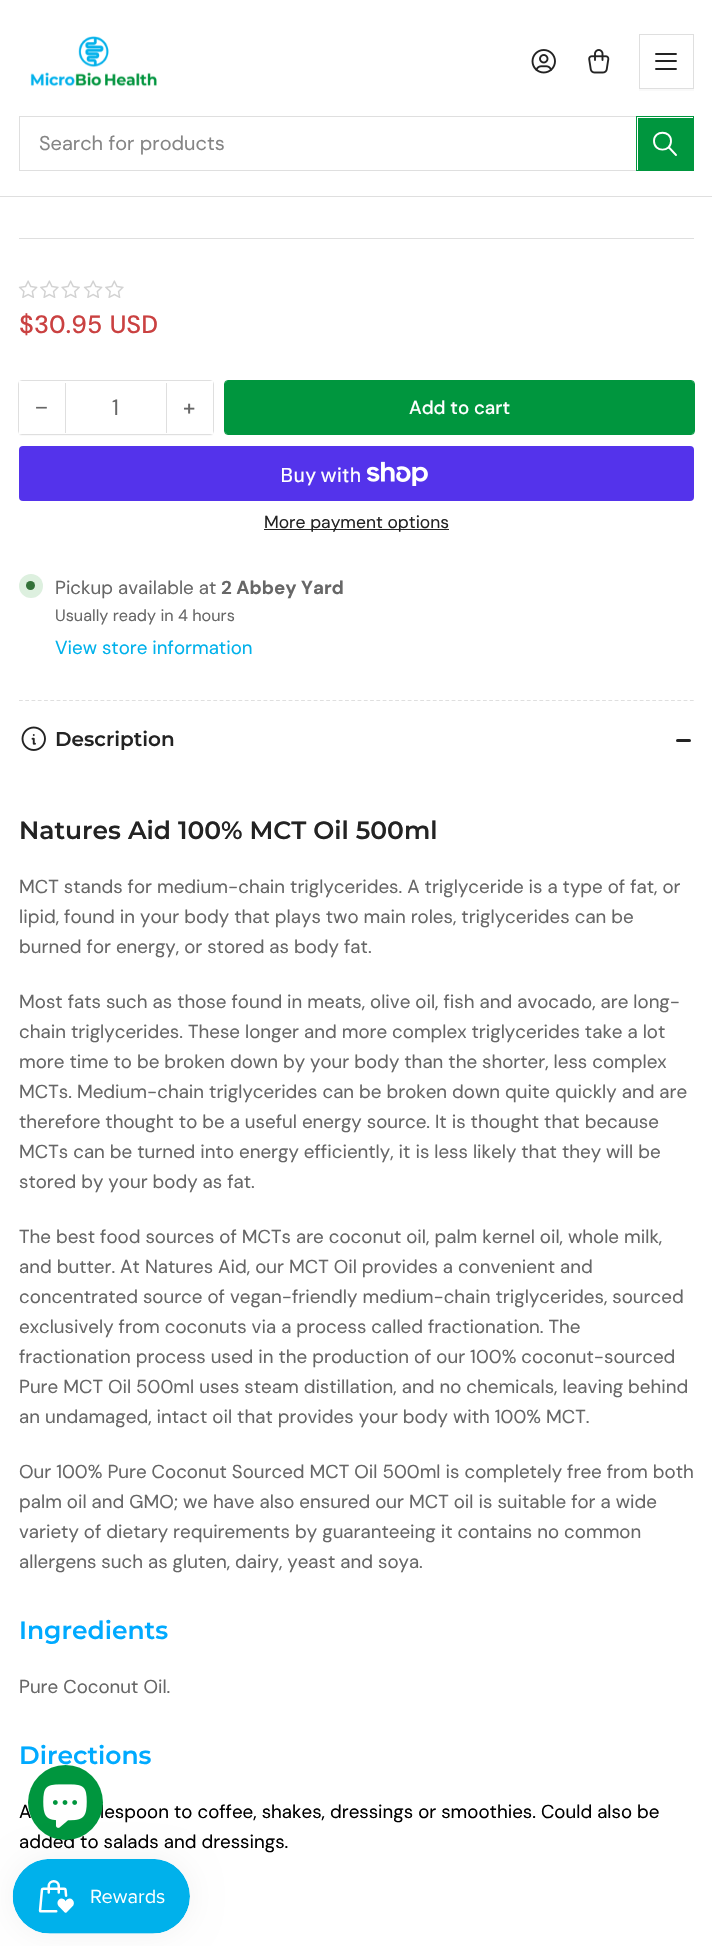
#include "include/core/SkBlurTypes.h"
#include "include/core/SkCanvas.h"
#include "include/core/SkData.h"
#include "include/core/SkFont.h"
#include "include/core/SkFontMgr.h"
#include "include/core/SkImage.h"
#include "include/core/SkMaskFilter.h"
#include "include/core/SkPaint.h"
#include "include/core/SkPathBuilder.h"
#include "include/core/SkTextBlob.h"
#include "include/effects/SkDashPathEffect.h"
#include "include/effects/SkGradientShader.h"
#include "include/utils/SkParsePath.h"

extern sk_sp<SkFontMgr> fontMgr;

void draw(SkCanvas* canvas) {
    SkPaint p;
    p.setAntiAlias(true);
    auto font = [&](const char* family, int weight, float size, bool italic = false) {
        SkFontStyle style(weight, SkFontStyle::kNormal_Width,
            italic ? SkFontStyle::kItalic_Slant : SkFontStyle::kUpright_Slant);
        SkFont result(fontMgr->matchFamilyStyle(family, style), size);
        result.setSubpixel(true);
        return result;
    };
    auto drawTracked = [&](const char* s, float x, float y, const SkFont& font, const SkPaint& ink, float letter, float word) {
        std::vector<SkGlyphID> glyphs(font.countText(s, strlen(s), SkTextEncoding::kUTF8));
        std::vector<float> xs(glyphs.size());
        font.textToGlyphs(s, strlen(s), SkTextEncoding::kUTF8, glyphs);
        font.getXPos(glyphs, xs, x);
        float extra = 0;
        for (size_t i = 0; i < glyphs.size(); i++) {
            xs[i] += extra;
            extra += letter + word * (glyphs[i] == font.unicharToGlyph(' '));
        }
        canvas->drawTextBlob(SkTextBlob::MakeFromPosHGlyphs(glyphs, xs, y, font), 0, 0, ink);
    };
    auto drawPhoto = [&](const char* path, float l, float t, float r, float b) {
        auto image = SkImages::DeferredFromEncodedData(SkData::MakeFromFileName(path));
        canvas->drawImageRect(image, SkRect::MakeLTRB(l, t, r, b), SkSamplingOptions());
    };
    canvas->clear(0xFFFFFFFF);
    p.setColor(0xFFDFDFDF);
    canvas->drawRect(SkRect::MakeLTRB(0, 196, 712, 197), p);
    drawPhoto("media/1.png", 30, 36, 157, 87);
    drawPhoto("media/2.png", 531, 49, 556, 74);
    drawPhoto("media/3.png", 588, 49, 610, 74);
    p.setColor(0xFFF9F9F9);
    canvas->drawPath(SkPathBuilder().moveTo(639, 89).lineTo(639, 91).lineTo(694, 91).lineTo(694, 36).lineTo(694, 89).close().detach(), p);
    p.setStyle(SkPaint::kStroke_Style);
    p.setStrokeWidth(1);
    p.setColor(0xFFDFDFDF);
    canvas->drawRect(SkRect::MakeLTRB(639.5f, 34.5f, 693.5f, 88.5f), p);
    p.setStrokeWidth(1.9f);
    p.setStrokeCap(SkPaint::kRound_Cap);
    p.setStrokeJoin(SkPaint::kRound_Join);
    p.setColor(0xFF232323);
    canvas->drawPath(SkPathBuilder().moveTo(656, 54).lineTo(676, 54).moveTo(656, 61).lineTo(676, 61).moveTo(656, 69).lineTo(676, 69).detach(), p);
    p.setStrokeWidth(1);
    p.setStrokeCap(SkPaint::kButt_Cap);
    p.setStrokeJoin(SkPaint::kMiter_Join);
    p.setColor(0xFFDFDFDF);
    canvas->drawRect(SkRect::MakeLTRB(19.5f, 116.5f, 693.5f, 170.5f), p);
    auto font1 = font("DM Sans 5", 400, 20);
    p.setStyle(SkPaint::kFill_Style);
    p.setColor(0xFF858585);
    canvas->drawString("Search for products", 39, 150, font1, p);
    p.setStyle(SkPaint::kStroke_Style);
    p.setColor(0xFF00963E);
    canvas->drawRect(SkRect::MakeLTRB(636.5f, 116.5f, 693.5f, 170.5f), p);
    p.setStyle(SkPaint::kFill_Style);
    canvas->drawRect(SkRect::MakeLTRB(638, 118, 693, 170), p);
    p.setStyle(SkPaint::kStroke_Style);
    p.setStrokeWidth(1.9f);
    p.setStrokeCap(SkPaint::kRound_Cap);
    p.setStrokeJoin(SkPaint::kRound_Join);
    p.setColor(0xFFFFFFFF);
    canvas->drawPath(SkPathBuilder().moveTo(654, 141).cubicTo(654, 152.5f, 671, 152.5f, 671, 141).cubicTo(671, 130, 654, 130, 654, 141).moveTo(676, 155).lineTo(669, 147.5f).detach(), p);
    p.setStyle(SkPaint::kFill_Style);
    p.setColor(0xFFDFDFDF);
    canvas->drawRect(SkRect::MakeLTRB(19, 238, 694, 239), p);
    drawPhoto("media/4.png", 18, 280, 38, 298);
    drawPhoto("media/5.png", 40, 280, 59, 298);
    drawPhoto("media/6.png", 61, 280, 80, 298);
    drawPhoto("media/4.png", 83, 280, 103, 298);
    drawPhoto("media/5.png", 105, 280, 124, 298);
    auto font2 = font("DM Sans", 500, 25);
    p.setColor(0xFFCA4141);
    drawTracked("$30.95 USD", 19, 333, font2, p, 0, 1);
    p.setColor(0xFFF9F9F9);
    canvas->drawPath(SkPathBuilder().moveTo(19, 432).lineTo(19, 434).cubicTo(19, 435, 20, 436, 22, 436).lineTo(210, 436).cubicTo(212, 436, 213, 435, 213, 434).lineTo(213, 386).lineTo(212, 385).lineTo(212, 431).cubicTo(212, 433, 211, 434, 210, 434).lineTo(21, 434).cubicTo(20, 434, 19, 433, 19, 432).close().detach(), p);
    p.setStyle(SkPaint::kStroke_Style);
    p.setStrokeWidth(1);
    p.setStrokeCap(SkPaint::kButt_Cap);
    p.setStrokeJoin(SkPaint::kMiter_Join);
    p.setColor(0xFFDFDFDF);
    canvas->drawRoundRect(SkRect::MakeLTRB(18.5f, 380.5f, 213.5f, 434.5f), 3.5f, 3.5f, p);
    p.setStyle(SkPaint::kFill_Style);
    p.setColor(0xFFFFFFFF);
    canvas->drawRect(SkRect::MakeLTRB(19, 381, 22, 434), p);
    auto font3 = font("Liberation Sans", 400, 22);
    p.setColor(0xFF676767);
    canvas->drawString("−", 35, 415, font3, p);
    p.setColor(0xFFDFDFDF);
    canvas->drawRect(SkRect::MakeLTRB(166, 383, 167, 433), p);
    canvas->drawRect(SkRect::MakeLTRB(65, 383, 66, 433), p);
    auto font4 = font("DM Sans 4", 400, 22);
    p.setColor(0xFF676767);
    canvas->drawString("1", 112, 415, font4, p);
    p.setColor(0xFFFFFFFF);
    canvas->drawRect(SkRect::MakeLTRB(210, 381, 213, 434), p);
    auto font5 = font("DM Sans", 500, 22);
    p.setColor(0xFF676767);
    canvas->drawString("+", 183, 415, font5, p);
    p.setStyle(SkPaint::kStroke_Style);
    p.setColor(0xFF00963E);
    canvas->drawRoundRect(SkRect::MakeLTRB(224.5f, 380.5f, 694.5f, 434.5f), 3.5f, 3.5f, p);
    p.setStyle(SkPaint::kFill_Style);
    canvas->drawRoundRect(SkRect::MakeLTRB(225, 381, 694, 434), 2.5f, 2.5f, p);
    auto font6 = font("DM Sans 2", 500, 18.75f);
    p.setColor(0xFFFFFFFF);
    canvas->drawString("Add to cart", 409, 414, font6, p);
    p.setColor(0xFF5433EB);
    canvas->drawRoundRect(SkRect::MakeLTRB(19, 446, 694, 501), 4, 4, p);
    auto font7 = font("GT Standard", 400, 20);
    p.setColor(0xFFFFFFFF);
    canvas->drawString("Buy with", 280, 482, font7, p);
    drawPhoto("media/7.png", 366, 461, 428, 486);
    p.setColor(0xFF232323);
    canvas->drawRect(SkRect::MakeLTRB(264, 529, 449, 530), p);
    auto font8 = font("DM Sans", 400, 17.5f);
    canvas->drawString("More payment options", 264, 528, font8, p);
    p.setColor(0xFFDDF0DF);
    canvas->drawCircle(31, 586, 12, p);
    p.setColor(0xFF337239);
    canvas->drawCircle(30.5f, 585.5f, 4.5f, p);
    auto font9 = font("DM Sans 2", 400, 18.75f);
    p.setColor(0xFF676767);
    canvas->drawString("Pickup available at", 55, 594, font9, p);
    auto font10 = font("DM Sans", 700, 18.75f);
    canvas->drawString("2 Abbey Yard", 221, 594, font10, p);
    auto font11 = font("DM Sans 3", 400, 16.25f);
    canvas->drawString("Usually ready in 4 hours", 55, 621, font11, p);
    p.setColor(0xFF00B1EB);
    canvas->drawString("View store information", 55, 654, font9, p);
    p.setStyle(SkPaint::kStroke_Style);
    p.setStrokeWidth(1.2f);
    p.setColor(0xFFDFDFDF);
    p.setPathEffect(SkDashPathEffect::Make({{3.75f, 2.52f}}, 0));
    canvas->drawPath(SkPathBuilder().moveTo(19, 700.5f).lineTo(694, 700.5f).detach(), p);
    p.setPathEffect(nullptr);
    drawPhoto("media/8.png", 21, 726, 46, 751);
    auto font12 = font("Montserrat", 600, 20);
    p.setStyle(SkPaint::kFill_Style);
    p.setColor(0xFF232323);
    canvas->drawString("Description", 55, 746, font12, p);
    canvas->drawRoundRect(SkRect::MakeLTRB(676, 739, 686, 742), 1.5f, 1.5f, p);
    canvas->drawRoundRect(SkRect::MakeLTRB(681, 739, 691, 742), 1.5f, 1.5f, p);
    auto font13 = font("Montserrat", 600, 25);
    canvas->drawString("Natures Aid 100% MCT Oil 500ml", 19, 839, font13, p);
    p.setColor(0xFF676767);
    {
        const struct { const char* s; float x, y; } items[] = {
            {"MCT stands for medium-chain triglycerides. A triglyceride is a type of fat, or", 19, 893},
            {"lipid, found in your body that plays two main roles, triglycerides can be", 19, 923},
            {"burned for energy, or stored as body fat.", 19, 953},
            {"Most fats such as those found in meats, olive oil, fish and avocado, are long-", 19, 1008},
            {"chain triglycerides. These longer and more complex triglycerides take a lot", 19, 1038},
            {"more time to be broken down by your body than the shorter, less complex", 19, 1068},
            {"MCTs. Medium-chain triglycerides can be broken down quite quickly and are", 19, 1098},
            {"therefore thought to be a useful energy source. It is thought that because", 19, 1128},
            {"MCTs can be turned into energy efficiently, it is less likely that they will be", 19, 1158},
            {"stored by your body as fat.", 19, 1188},
            {"The best food sources of MCTs are coconut oil, palm kernel oil, whole milk,", 19, 1243},
            {"and butter. At Natures Aid, our MCT Oil provides a convenient and", 19, 1273},
            {"concentrated source of vegan-friendly medium-chain triglycerides, sourced", 19, 1303},
            {"exclusively from coconuts via a process called fractionation. The", 19, 1333},
            {"fractionation process used in the production of our 100% coconut-sourced", 19, 1363},
            {"Pure MCT Oil 500ml uses steam distillation, and no chemicals, leaving behind", 19, 1393},
            {"an undamaged, intact oil that provides your body with 100% MCT.", 19, 1423},
            {"Our 100% Pure Coconut Sourced MCT Oil 500ml is completely free from both", 19, 1478},
            {"palm oil and GMO; we have also ensured our MCT oil is suitable for a wide", 19, 1508},
            {"variety of dietary requirements by guaranteeing it contains no common", 19, 1538},
            {"allergens such as gluten, dairy, yeast and soya.", 19, 1568},
        };
        for (auto [s, x, y] : items) {
            canvas->drawString(s, x, y, font9, p);
        }
    }
    p.setColor(0xFF00AAFF);
    canvas->drawString("Ingredients", 19, 1639, font13, p);
    p.setColor(0xFF676767);
    canvas->drawString("Pure Coconut Oil.", 19, 1693, font9, p);
    p.setColor(0xFF00AAFF);
    canvas->drawString("Directions", 19, 1764, font13, p);
    p.setColor(0xFF000000);
    {
        const struct { const char* s; float x, y; } items[] = {
            {"A", 19, 1818},
            {"lespoon to coffee, shakes, dressings or smoothies. Could also be", 100, 1818},
            {"added to salads and dressings.", 19, 1848},
        };
        for (auto [s, x, y] : items) {
            canvas->drawString(s, x, y, font9, p);
        }
    }
    p.setColor(0xFF00963E);
    canvas->drawCircle(65.5f, 1802.5f, 37.5f, p);
    drawPhoto("media/9.png", 43, 1784, 87, 1828);
    p.setColor(0x0D000000);
    p.setMaskFilter(SkMaskFilter::MakeBlur(kNormal_SkBlurStyle, 15.5f));
    canvas->drawRoundRect(SkRect::MakeLTRB(13, 1859, 190, 1934), 37.5f, 37.5f, p);
    p.setMaskFilter(nullptr);
    drawPhoto("media/10.png", 12, 1859, 190, 1934);
}
